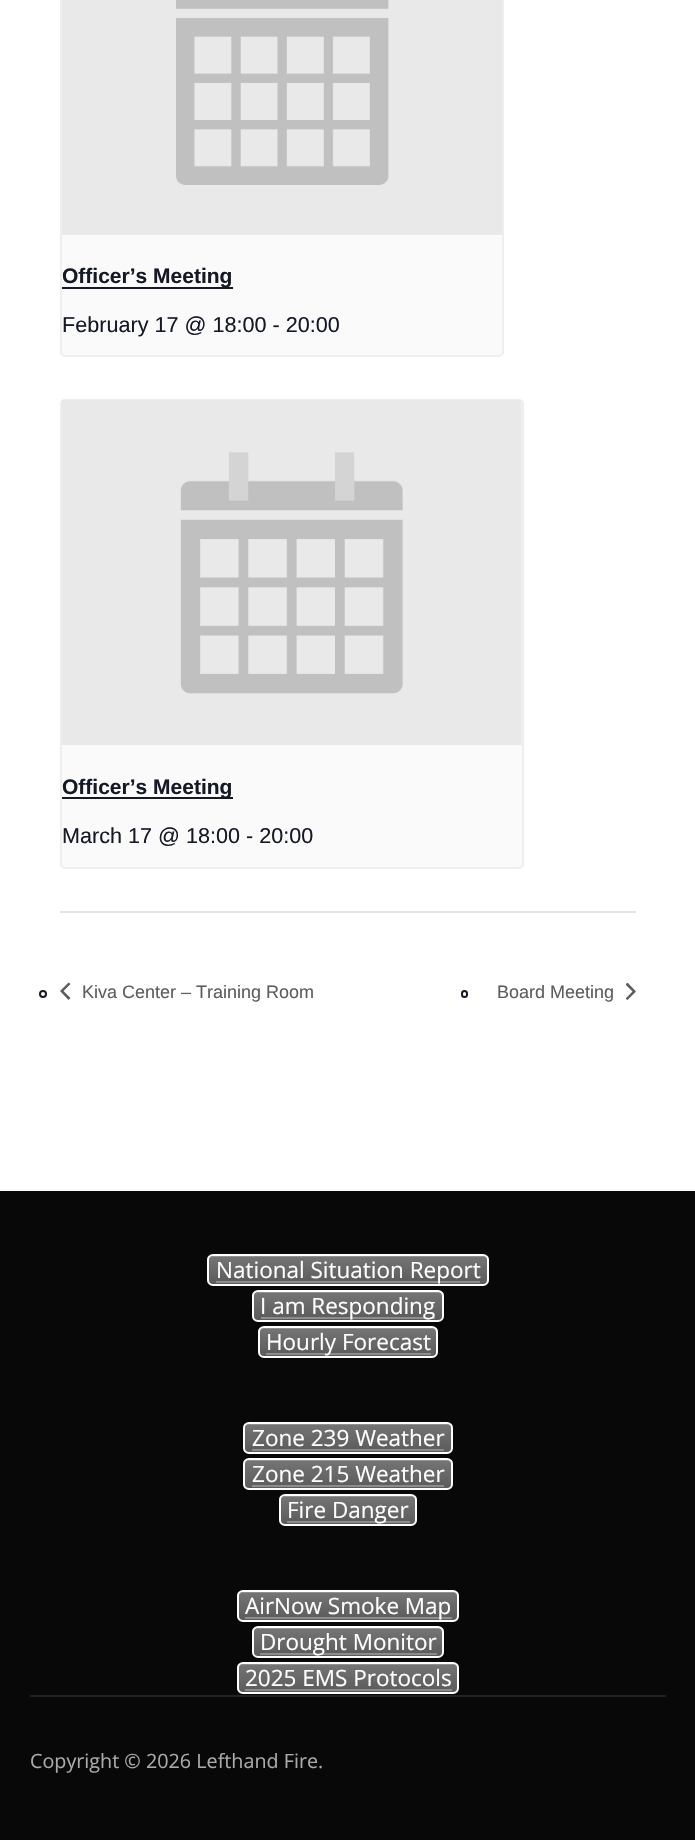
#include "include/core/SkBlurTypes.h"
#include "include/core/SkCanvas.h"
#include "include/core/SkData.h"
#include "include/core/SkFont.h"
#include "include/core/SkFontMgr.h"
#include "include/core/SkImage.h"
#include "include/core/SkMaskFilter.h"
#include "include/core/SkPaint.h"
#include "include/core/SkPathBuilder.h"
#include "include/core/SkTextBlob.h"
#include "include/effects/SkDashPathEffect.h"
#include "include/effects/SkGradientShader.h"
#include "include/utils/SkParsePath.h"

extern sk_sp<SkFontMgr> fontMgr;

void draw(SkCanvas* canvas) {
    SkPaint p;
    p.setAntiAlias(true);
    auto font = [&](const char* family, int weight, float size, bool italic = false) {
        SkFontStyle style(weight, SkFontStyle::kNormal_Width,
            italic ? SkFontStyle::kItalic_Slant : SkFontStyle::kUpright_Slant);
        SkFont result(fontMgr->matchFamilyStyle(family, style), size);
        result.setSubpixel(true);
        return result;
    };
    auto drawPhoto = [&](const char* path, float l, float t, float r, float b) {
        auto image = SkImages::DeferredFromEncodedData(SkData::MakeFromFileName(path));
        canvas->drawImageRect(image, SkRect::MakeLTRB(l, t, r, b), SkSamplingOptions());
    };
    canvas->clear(0xFFFFFFFF);
    p.setColor(0xFFFAFAFA);
    canvas->drawRoundRect(SkRect::MakeLTRB(61, -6, 503, 356), 4, 4, p);
    p.setStyle(SkPaint::kStroke_Style);
    p.setStrokeWidth(2);
    p.setColor(0xFFEEEEEE);
    canvas->drawRoundRect(SkRect::MakeLTRB(61, -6, 503, 356), 4, 4, p);
    drawPhoto("media/1.png", 62, 0, 502, 235);
    p.setStyle(SkPaint::kFill_Style);
    p.setColor(0xFF141827);
    canvas->drawRect(SkRect::MakeLTRB(62, 287, 233, 289), p);
    auto font1 = font("Liberation Sans", 700, 21);
    canvas->drawString("Officer’s Meeting", 62, 283, font1, p);
    auto font2 = font("Liberation Sans", 400, 21.6f);
    canvas->drawString("February 17 @ 18:00 - 20:00", 62, 332, font2, p);
    p.setColor(0xFFFAFAFA);
    canvas->drawRoundRect(SkRect::MakeLTRB(61, 400, 523, 868), 4, 4, p);
    p.setStyle(SkPaint::kStroke_Style);
    p.setColor(0xFFEEEEEE);
    canvas->drawRoundRect(SkRect::MakeLTRB(61, 400, 523, 868), 4, 4, p);
    drawPhoto("media/2.png", 61, 400, 522, 745);
    p.setStyle(SkPaint::kFill_Style);
    p.setColor(0xFF141827);
    canvas->drawRect(SkRect::MakeLTRB(62, 797, 233, 799), p);
    canvas->drawString("Officer’s Meeting", 62, 794, font1, p);
    canvas->drawString("March 17 @ 18:00 - 20:00", 62, 843, font2, p);
    p.setColor(0xFFE4E4E4);
    canvas->drawRect(SkRect::MakeLTRB(60, 911, 636, 913), p);
    p.setStyle(SkPaint::kStroke_Style);
    p.setColor(0xFF141827);
    canvas->drawCircle(43, 994, 3, p);
    p.setStyle(SkPaint::kFill_Style);
    p.setColor(0xFF5D5D5D);
    canvas->drawPath(SkPathBuilder().moveTo(70.5f, 998).lineTo(68.5f, 1000).lineTo(60, 991).lineTo(68.5f, 982.5f).lineTo(70.5f, 984).lineTo(63.5f, 991).close().detach(), p);
    auto font3 = font("Liberation Sans", 400, 18);
    canvas->drawString("Kiva Center – Training Room", 82, 998, font3, p);
    p.setStyle(SkPaint::kStroke_Style);
    p.setColor(0xFF141827);
    canvas->drawRoundRect(SkRect::MakeLTRB(462, 991, 467, 997), 2.5f, 2.5f, p);
    p.setStyle(SkPaint::kFill_Style);
    p.setColor(0xFF5D5D5D);
    canvas->drawString("Board Meeting", 497, 998, font3, p);
    canvas->save();
    canvas->clipRect(SkRect::MakeLTRB(626, 983, 636, 1001));
    canvas->drawPath(SkPathBuilder().moveTo(625.5f, 984.5f).lineTo(627.5f, 982.5f).lineTo(636, 991.5f).lineTo(627.5f, 1000).lineTo(625.5f, 998.5f).lineTo(632.5f, 991.5f).close().detach(), p);
    canvas->restore();
    p.setColor(0xFF080808);
    canvas->drawRect(SkRect::MakeLTRB(0, 1191, 695, 1840), p);
    canvas->save();
    canvas->clipPath(SkPathBuilder().moveTo(213, 1254).lineTo(483, 1254).cubicTo(486.5f, 1254, 489, 1256.5f, 489, 1260).lineTo(489, 1280).cubicTo(489, 1283.5f, 486.5f, 1286, 483, 1286).lineTo(213, 1286).cubicTo(209.5f, 1286, 207, 1283.5f, 207, 1280).lineTo(207, 1260).cubicTo(207, 1256.5f, 209.5f, 1254, 213, 1254).close().detach(), true);
    {
        const SkColor colors[] = {0xFF5B5B5B, 0xFF757575};
        const float stops[] = {0, 1};
        const SkPoint ends[] = {{209, 1284}, {209, 1256}};
        p.setShader(SkGradientShader::MakeLinear(ends, colors, stops, 2, SkTileMode::kClamp));
        p.setAlpha(255);
    }
    canvas->drawRect(SkRect::MakeLTRB(207, 1256, 489, 1284), p);
    canvas->restore();
    p.setShader(nullptr);
    p.setColor(0xFF919191);
    canvas->drawPath(SkPathBuilder().moveTo(213, 1257).lineTo(483, 1257).cubicTo(486, 1257, 488, 1259, 488, 1261).cubicTo(488, 1258, 486, 1256, 483, 1256).lineTo(214, 1256).cubicTo(213, 1256, 211, 1257, 210, 1258).close().detach(), p);
    p.setStyle(SkPaint::kStroke_Style);
    p.setColor(0xFFFFFFFF);
    canvas->drawRoundRect(SkRect::MakeLTRB(208, 1255, 488, 1285), 5, 5, p);
    p.setStyle(SkPaint::kFill_Style);
    p.setColor(0xFF8D8D8D);
    canvas->drawRect(SkRect::MakeLTRB(216, 1281, 480, 1283), p);
    auto font4 = font("Open Sans", 400, 22.5f);
    p.setColor(0xFFFFFFFF);
    canvas->drawString("National Situation Report", 216, 1278, font4, p);
    canvas->save();
    canvas->clipPath(SkPathBuilder().moveTo(258, 1290).lineTo(438, 1290).cubicTo(441.5f, 1290, 444, 1292.5f, 444, 1296).lineTo(444, 1316).cubicTo(444, 1319.5f, 441.5f, 1322, 438, 1322).lineTo(258, 1322).cubicTo(254.5f, 1322, 252, 1319.5f, 252, 1316).lineTo(252, 1296).cubicTo(252, 1292.5f, 254.5f, 1290, 258, 1290).close().detach(), true);
    {
        const SkColor colors[] = {0xFF5B5B5B, 0xFF757575};
        const float stops[] = {0, 1};
        const SkPoint ends[] = {{254, 1320}, {254, 1292}};
        p.setShader(SkGradientShader::MakeLinear(ends, colors, stops, 2, SkTileMode::kClamp));
        p.setAlpha(255);
    }
    canvas->drawRect(SkRect::MakeLTRB(252, 1292, 444, 1320), p);
    canvas->restore();
    p.setShader(nullptr);
    p.setColor(0x33FFFFFF);
    canvas->drawPath(SkPathBuilder().moveTo(258, 1293).lineTo(438, 1293).cubicTo(444, 1293, 442, 1300, 442, 1304).lineTo(442, 1318).cubicTo(443, 1317, 443, 1316, 443, 1315).lineTo(443, 1297).cubicTo(443, 1294, 441, 1292, 438, 1292).lineTo(259, 1292).cubicTo(257, 1292, 255, 1293, 255, 1295).cubicTo(255, 1294, 256, 1293, 258, 1293).close().detach(), p);
    p.setStyle(SkPaint::kStroke_Style);
    p.setColor(0xFFFFFFFF);
    canvas->drawRoundRect(SkRect::MakeLTRB(253, 1291, 443, 1321), 5, 5, p);
    p.setStyle(SkPaint::kFill_Style);
    p.setColor(0xFF8D8D8D);
    canvas->drawRect(SkRect::MakeLTRB(261, 1317, 435, 1319), p);
    p.setColor(0xFFFFFFFF);
    canvas->drawString("I am Responding", 260, 1314, font4, p);
    canvas->save();
    canvas->clipPath(SkPathBuilder().moveTo(264, 1326).lineTo(432, 1326).cubicTo(435.5f, 1326, 438, 1328.5f, 438, 1332).lineTo(438, 1352).cubicTo(438, 1355.5f, 435.5f, 1358, 432, 1358).lineTo(264, 1358).cubicTo(260.5f, 1358, 258, 1355.5f, 258, 1352).lineTo(258, 1332).cubicTo(258, 1328.5f, 260.5f, 1326, 264, 1326).close().detach(), true);
    {
        const SkColor colors[] = {0xFF5B5B5B, 0xFF757575};
        const float stops[] = {0, 1};
        const SkPoint ends[] = {{260, 1356}, {260, 1328}};
        p.setShader(SkGradientShader::MakeLinear(ends, colors, stops, 2, SkTileMode::kClamp));
        p.setAlpha(255);
    }
    canvas->drawRect(SkRect::MakeLTRB(258, 1328, 438, 1356), p);
    canvas->restore();
    p.setShader(nullptr);
    p.setColor(0x33FFFFFF);
    canvas->drawPath(SkPathBuilder().moveTo(264, 1329).lineTo(432, 1329).cubicTo(438, 1329, 436, 1336, 436, 1340).lineTo(436, 1354).cubicTo(437, 1353, 437, 1352, 437, 1351).lineTo(437, 1333).cubicTo(437, 1330, 435, 1328, 432, 1328).lineTo(265, 1328).cubicTo(263, 1328, 261, 1329, 261, 1331).cubicTo(261, 1330, 262, 1329, 264, 1329).close().detach(), p);
    p.setStyle(SkPaint::kStroke_Style);
    p.setColor(0xFFFFFFFF);
    canvas->drawRoundRect(SkRect::MakeLTRB(259, 1327, 437, 1357), 5, 5, p);
    p.setStyle(SkPaint::kFill_Style);
    p.setColor(0xFF8D8D8D);
    canvas->drawRect(SkRect::MakeLTRB(266, 1353, 431, 1355), p);
    p.setColor(0xFFFFFFFF);
    canvas->drawString("Hourly Forecast", 266, 1350, font4, p);
    canvas->save();
    canvas->clipPath(SkPathBuilder().moveTo(249, 1422).lineTo(447, 1422).cubicTo(450.5f, 1422, 453, 1424.5f, 453, 1428).lineTo(453, 1448).cubicTo(453, 1451.5f, 450.5f, 1454, 447, 1454).lineTo(249, 1454).cubicTo(245.5f, 1454, 243, 1451.5f, 243, 1448).lineTo(243, 1428).cubicTo(243, 1424.5f, 245.5f, 1422, 249, 1422).close().detach(), true);
    {
        const SkColor colors[] = {0xFF5B5B5B, 0xFF757575};
        const float stops[] = {0, 1};
        const SkPoint ends[] = {{245, 1452}, {245, 1424}};
        p.setShader(SkGradientShader::MakeLinear(ends, colors, stops, 2, SkTileMode::kClamp));
        p.setAlpha(255);
    }
    canvas->drawRect(SkRect::MakeLTRB(243, 1424, 453, 1452), p);
    canvas->restore();
    p.setShader(nullptr);
    p.setColor(0xFF919191);
    canvas->drawPath(SkPathBuilder().moveTo(249, 1425).lineTo(447, 1425).cubicTo(450, 1425, 452, 1427, 452, 1429).cubicTo(452, 1426, 450, 1424, 447, 1424).lineTo(250, 1424).cubicTo(249, 1424, 247, 1425, 246, 1426).close().detach(), p);
    p.setStyle(SkPaint::kStroke_Style);
    p.setColor(0xFFFFFFFF);
    canvas->drawRoundRect(SkRect::MakeLTRB(244, 1423, 452, 1453), 5, 5, p);
    p.setStyle(SkPaint::kFill_Style);
    canvas->drawString("Zone 239 Weather", 252, 1446, font4, p);
    p.setColor(0xFF8D8D8D);
    canvas->drawRect(SkRect::MakeLTRB(252, 1449, 444, 1451), p);
    canvas->save();
    canvas->clipPath(SkPathBuilder().moveTo(249, 1458).lineTo(447, 1458).cubicTo(450.5f, 1458, 453, 1460.5f, 453, 1464).lineTo(453, 1484).cubicTo(453, 1487.5f, 450.5f, 1490, 447, 1490).lineTo(249, 1490).cubicTo(245.5f, 1490, 243, 1487.5f, 243, 1484).lineTo(243, 1464).cubicTo(243, 1460.5f, 245.5f, 1458, 249, 1458).close().detach(), true);
    {
        const SkColor colors[] = {0xFF5B5B5B, 0xFF757575};
        const float stops[] = {0, 1};
        const SkPoint ends[] = {{245, 1488}, {245, 1460}};
        p.setShader(SkGradientShader::MakeLinear(ends, colors, stops, 2, SkTileMode::kClamp));
        p.setAlpha(255);
    }
    canvas->drawRect(SkRect::MakeLTRB(243, 1460, 453, 1488), p);
    canvas->restore();
    p.setShader(nullptr);
    p.setColor(0xFF919191);
    canvas->drawPath(SkPathBuilder().moveTo(249, 1461).lineTo(447, 1461).cubicTo(450, 1461, 452, 1463, 452, 1465).cubicTo(452, 1462, 450, 1460, 447, 1460).lineTo(250, 1460).cubicTo(249, 1460, 247, 1461, 246, 1462).close().detach(), p);
    p.setStyle(SkPaint::kStroke_Style);
    p.setColor(0xFFFFFFFF);
    canvas->drawRoundRect(SkRect::MakeLTRB(244, 1459, 452, 1489), 5, 5, p);
    p.setStyle(SkPaint::kFill_Style);
    canvas->drawString("Zone 215 Weather", 252, 1482, font4, p);
    p.setColor(0xFF8D8D8D);
    canvas->drawRect(SkRect::MakeLTRB(252, 1485, 444, 1487), p);
    canvas->save();
    canvas->clipPath(SkPathBuilder().moveTo(285, 1494).lineTo(411, 1494).cubicTo(414.5f, 1494, 417, 1496.5f, 417, 1500).lineTo(417, 1520).cubicTo(417, 1523.5f, 414.5f, 1526, 411, 1526).lineTo(285, 1526).cubicTo(281.5f, 1526, 279, 1523.5f, 279, 1520).lineTo(279, 1500).cubicTo(279, 1496.5f, 281.5f, 1494, 285, 1494).close().detach(), true);
    {
        const SkColor colors[] = {0xFF5B5B5B, 0xFF757575};
        const float stops[] = {0, 1};
        const SkPoint ends[] = {{281, 1524}, {281, 1496}};
        p.setShader(SkGradientShader::MakeLinear(ends, colors, stops, 2, SkTileMode::kClamp));
        p.setAlpha(255);
    }
    canvas->drawRect(SkRect::MakeLTRB(279, 1496, 417, 1524), p);
    canvas->restore();
    p.setShader(nullptr);
    p.setColor(0xFF919191);
    canvas->drawPath(SkPathBuilder().moveTo(285, 1497).lineTo(411, 1497).cubicTo(414, 1497, 416, 1499, 416, 1501).cubicTo(416, 1498, 414, 1496, 411, 1496).lineTo(286, 1496).cubicTo(285, 1496, 283, 1497, 282, 1498).close().detach(), p);
    p.setStyle(SkPaint::kStroke_Style);
    p.setColor(0xFFFFFFFF);
    canvas->drawRoundRect(SkRect::MakeLTRB(280, 1495, 416, 1525), 5, 5, p);
    p.setStyle(SkPaint::kFill_Style);
    p.setColor(0xFF8D8D8D);
    canvas->drawRect(SkRect::MakeLTRB(287, 1521, 410, 1523), p);
    p.setColor(0xFFFFFFFF);
    canvas->drawString("Fire Danger", 287, 1518, font4, p);
    canvas->save();
    canvas->clipPath(SkPathBuilder().moveTo(243, 1590).lineTo(453, 1590).cubicTo(456.5f, 1590, 459, 1592.5f, 459, 1596).lineTo(459, 1616).cubicTo(459, 1619.5f, 456.5f, 1622, 453, 1622).lineTo(243, 1622).cubicTo(239.5f, 1622, 237, 1619.5f, 237, 1616).lineTo(237, 1596).cubicTo(237, 1592.5f, 239.5f, 1590, 243, 1590).close().detach(), true);
    {
        const SkColor colors[] = {0xFF5B5B5B, 0xFF757575};
        const float stops[] = {0, 1};
        const SkPoint ends[] = {{239, 1620}, {239, 1592}};
        p.setShader(SkGradientShader::MakeLinear(ends, colors, stops, 2, SkTileMode::kClamp));
        p.setAlpha(255);
    }
    canvas->drawRect(SkRect::MakeLTRB(237, 1592, 459, 1620), p);
    canvas->restore();
    p.setShader(nullptr);
    p.setColor(0xFF919191);
    canvas->drawPath(SkPathBuilder().moveTo(243, 1593).lineTo(453, 1593).cubicTo(456, 1593, 458, 1595, 458, 1597).cubicTo(458, 1594, 456, 1592, 453, 1592).lineTo(244, 1592).cubicTo(243, 1592, 241, 1593, 240, 1594).close().detach(), p);
    p.setStyle(SkPaint::kStroke_Style);
    p.setColor(0xFFFFFFFF);
    canvas->drawRoundRect(SkRect::MakeLTRB(238, 1591, 458, 1621), 5, 5, p);
    p.setStyle(SkPaint::kFill_Style);
    p.setColor(0xFF8D8D8D);
    canvas->drawRect(SkRect::MakeLTRB(245, 1617, 452, 1619), p);
    p.setColor(0xFFFFFFFF);
    canvas->drawString("AirNow Smoke Map", 245, 1614, font4, p);
    canvas->save();
    canvas->clipPath(SkPathBuilder().moveTo(258, 1626).lineTo(438, 1626).cubicTo(441.5f, 1626, 444, 1628.5f, 444, 1632).lineTo(444, 1652).cubicTo(444, 1655.5f, 441.5f, 1658, 438, 1658).lineTo(258, 1658).cubicTo(254.5f, 1658, 252, 1655.5f, 252, 1652).lineTo(252, 1632).cubicTo(252, 1628.5f, 254.5f, 1626, 258, 1626).close().detach(), true);
    {
        const SkColor colors[] = {0xFF5B5B5B, 0xFF757575};
        const float stops[] = {0, 1};
        const SkPoint ends[] = {{254, 1656}, {254, 1628}};
        p.setShader(SkGradientShader::MakeLinear(ends, colors, stops, 2, SkTileMode::kClamp));
        p.setAlpha(255);
    }
    canvas->drawRect(SkRect::MakeLTRB(252, 1628, 444, 1656), p);
    canvas->restore();
    p.setShader(nullptr);
    p.setColor(0x33FFFFFF);
    canvas->drawPath(SkPathBuilder().moveTo(258, 1629).lineTo(438, 1629).cubicTo(444, 1629, 442, 1636, 442, 1640).lineTo(442, 1654).cubicTo(443, 1653, 443, 1652, 443, 1651).lineTo(443, 1633).cubicTo(443, 1630, 441, 1628, 438, 1628).lineTo(259, 1628).cubicTo(257, 1628, 255, 1629, 255, 1631).cubicTo(255, 1630, 256, 1629, 258, 1629).close().detach(), p);
    p.setStyle(SkPaint::kStroke_Style);
    p.setColor(0xFFFFFFFF);
    canvas->drawRoundRect(SkRect::MakeLTRB(253, 1627, 443, 1657), 5, 5, p);
    p.setStyle(SkPaint::kFill_Style);
    p.setColor(0xFF8D8D8D);
    canvas->drawRect(SkRect::MakeLTRB(260, 1653, 437, 1655), p);
    p.setColor(0xFFFFFFFF);
    canvas->drawString("Drought Monitor", 260, 1650, font4, p);
    canvas->save();
    canvas->clipPath(SkPathBuilder().moveTo(243, 1662).lineTo(453, 1662).cubicTo(456.5f, 1662, 459, 1664.5f, 459, 1668).lineTo(459, 1688).cubicTo(459, 1691.5f, 456.5f, 1694, 453, 1694).lineTo(243, 1694).cubicTo(239.5f, 1694, 237, 1691.5f, 237, 1688).lineTo(237, 1668).cubicTo(237, 1664.5f, 239.5f, 1662, 243, 1662).close().detach(), true);
    {
        const SkColor colors[] = {0xFF5B5B5B, 0xFF757575};
        const float stops[] = {0, 1};
        const SkPoint ends[] = {{239, 1692}, {239, 1664}};
        p.setShader(SkGradientShader::MakeLinear(ends, colors, stops, 2, SkTileMode::kClamp));
        p.setAlpha(255);
    }
    canvas->drawRect(SkRect::MakeLTRB(237, 1664, 459, 1692), p);
    canvas->restore();
    p.setShader(nullptr);
    p.setColor(0xFF919191);
    canvas->drawPath(SkPathBuilder().moveTo(243, 1665).lineTo(453, 1665).cubicTo(456, 1665, 458, 1667, 458, 1669).cubicTo(458, 1666, 456, 1664, 453, 1664).lineTo(244, 1664).cubicTo(243, 1664, 241, 1665, 240, 1666).close().detach(), p);
    p.setStyle(SkPaint::kStroke_Style);
    p.setColor(0xFFFFFFFF);
    canvas->drawRoundRect(SkRect::MakeLTRB(238, 1663, 458, 1693), 5, 5, p);
    p.setStyle(SkPaint::kFill_Style);
    canvas->drawString("2025 EMS Protocols", 245, 1686, font4, p);
    p.setColor(0xFF8D8D8D);
    canvas->drawRect(SkRect::MakeLTRB(245, 1689, 452, 1691), p);
    p.setColor(0xFF222222);
    canvas->drawRect(SkRect::MakeLTRB(30, 1695, 666, 1697), p);
    auto font5 = font("Open Sans", 400, 19.75f);
    p.setColor(0xFFAAAAAA);
    canvas->drawString("Copyright © 2026 Lefthand Fire.", 30, 1768, font5, p);
}
